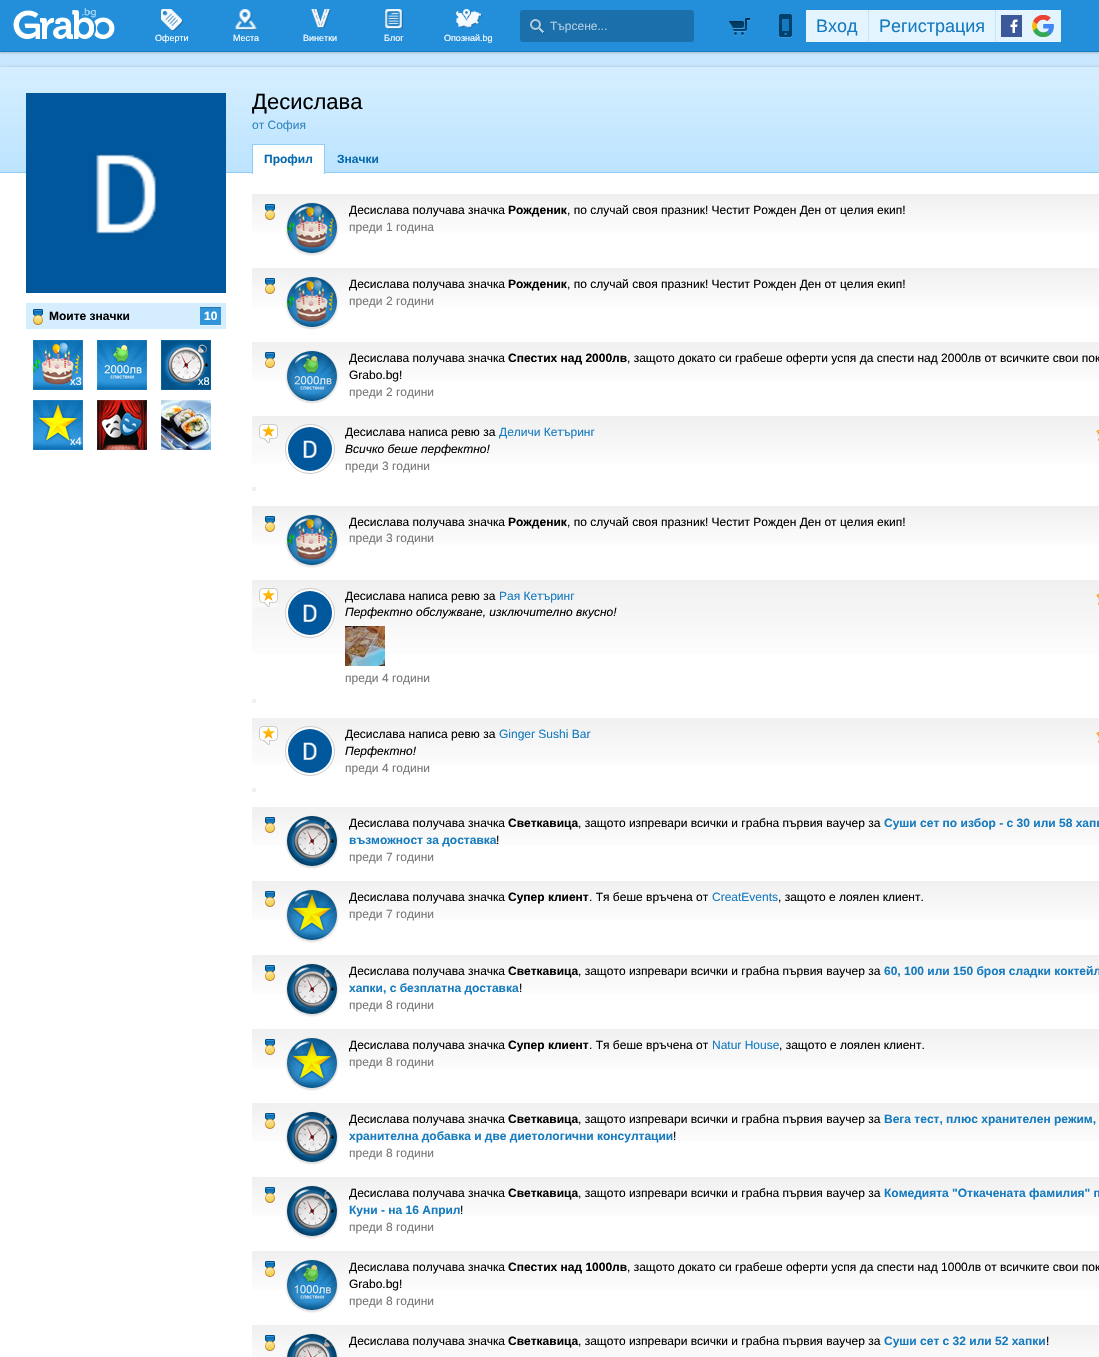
#include "include/core/SkBlurTypes.h"
#include "include/core/SkCanvas.h"
#include "include/core/SkData.h"
#include "include/core/SkFont.h"
#include "include/core/SkFontMgr.h"
#include "include/core/SkImage.h"
#include "include/core/SkMaskFilter.h"
#include "include/core/SkPaint.h"
#include "include/core/SkPathBuilder.h"
#include "include/core/SkTextBlob.h"
#include "include/effects/SkDashPathEffect.h"
#include "include/effects/SkGradientShader.h"
#include "include/utils/SkParsePath.h"

extern sk_sp<SkFontMgr> fontMgr;

void draw(SkCanvas* canvas) {
    SkPaint p;
    p.setAntiAlias(true);
    auto font = [&](const char* family, int weight, float size, bool italic = false) {
        SkFontStyle style(weight, SkFontStyle::kNormal_Width,
            italic ? SkFontStyle::kItalic_Slant : SkFontStyle::kUpright_Slant);
        SkFont result(fontMgr->matchFamilyStyle(family, style), size);
        result.setSubpixel(true);
        return result;
    };
    auto drawPhoto = [&](const char* path, float l, float t, float r, float b) {
        auto image = SkImages::DeferredFromEncodedData(SkData::MakeFromFileName(path));
        canvas->drawImageRect(image, SkRect::MakeLTRB(l, t, r, b), SkSamplingOptions());
    };
    canvas->clear(0xFFC9E7FF);
    p.setColor(0x33000000);
    p.setMaskFilter(SkMaskFilter::MakeBlur(kNormal_SkBlurStyle, 1));
    canvas->drawRect(SkRect::MakeLTRB(0, 1, 1099, 53), p);
    p.setMaskFilter(nullptr);
    p.setColor(0xFF238FDB);
    canvas->drawRect(SkRect::MakeLTRB(0, 0, 1099, 51), p);
    p.setColor(0xFF197DC1);
    canvas->drawRect(SkRect::MakeLTRB(0, 51, 1099, 52), p);
    drawPhoto("media/1.png", 13, 8, 115, 39);
    p.setColor(0xFF1B70AB);
    canvas->drawRoundRect(SkRect::MakeLTRB(520, 10, 694, 42), 3, 3, p);
    drawPhoto("media/2.png", 530, 19, 545, 34);
    auto font1 = font("Liberation Sans", 400, 12);
    p.setColor(0xFFAFCDE2);
    canvas->drawString("Търсене...", 550, 30, font1, p);
    drawPhoto("media/3.png", 161, 9, 183, 32);
    auto font2 = font("Liberation Sans", 400, 9);
    p.setColor(0xFFFFFFFF);
    canvas->drawString("Оферти", 155, 41, font2, p);
    drawPhoto("media/4.png", 234, 9, 258, 31);
    canvas->drawString("Места", 233, 41, font2, p);
    drawPhoto("media/5.png", 311, 9, 331, 29);
    canvas->drawString("Винетки", 303, 41, font2, p);
    drawPhoto("media/6.png", 385, 9, 403, 30);
    canvas->drawString("Блог", 384, 41, font2, p);
    drawPhoto("media/7.png", 456, 9, 482, 29);
    canvas->drawString("Опознай.bg", 444, 41, font2, p);
    drawPhoto("media/8.png", 729, 18, 750, 36);
    drawPhoto("media/9.png", 779, 14, 792, 38);
    {
        const struct { float l, t, r, b; SkColor color; } items[] = {
            {868, 10, 869, 42, 0xFFC2E6FD},
            {995, 10, 996, 42, 0xFFC2E6FD},
            {996, 10, 1061, 42, 0xFFE3F4FF},
        };
        for (auto [l, t, r, b, color] : items) {
            p.setColor(color);
            canvas->drawRect(SkRect::MakeLTRB(l, t, r, b), p);
        }
    }
    drawPhoto("media/10.png", 1032, 15, 1054, 37);
    canvas->drawRect(SkRect::MakeLTRB(806, 10, 868, 42), p);
    auto font3 = font("Liberation Sans", 400, 18);
    p.setColor(0xFF167BBF);
    canvas->drawString("Вход", 816, 32, font3, p);
    p.setColor(0xFFE3F4FF);
    canvas->drawRect(SkRect::MakeLTRB(869, 10, 995, 42), p);
    p.setColor(0xFF167BBF);
    canvas->drawString("Регистрация", 879, 32, font3, p);
    drawPhoto("media/11.png", 1001, 15, 1022, 37);
    p.setColor(0x40000000);
    p.setMaskFilter(SkMaskFilter::MakeBlur(kNormal_SkBlurStyle, 2));
    canvas->drawRect(SkRect::MakeLTRB(0, 68, 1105, 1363), p);
    p.setMaskFilter(nullptr);
    p.setColor(0xFFD4EEFF);
    canvas->drawRect(SkRect::MakeLTRB(0, 67, 1099, 77), p);
    p.setColor(0xFFFFFFFF);
    canvas->drawRect(SkRect::MakeLTRB(0, 173, 1099, 1357), p);
    drawPhoto("media/12.png", 0, 77, 1099, 173);
    drawPhoto("media/13.png", 26, 93, 226, 293);
    drawPhoto("media/14.png", 26, 303, 226, 329);
    auto font4 = font("Liberation Sans", 700, 12);
    p.setColor(0xFF000000);
    canvas->drawString("Моите значки", 49, 320, font4, p);
    {
        const struct { float l, t, r, b; SkColor color; } items[] = {
            {200, 308, 221, 325, 0xFF3295DA},
            {200, 307, 221, 308, 0xFF2878B0},
            {200, 325, 221, 326, 0xFFE8F6FF},
        };
        for (auto [l, t, r, b, color] : items) {
            p.setColor(color);
            canvas->drawRect(SkRect::MakeLTRB(l, t, r, b), p);
        }
    }
    p.setColor(0xFFFFFFFF);
    canvas->drawString("10", 204, 320, font4, p);
    drawPhoto("media/15.png", 33, 340, 83, 390);
    auto font5 = font("Liberation Sans", 400, 11);
    canvas->drawString("x3", 70, 385, font5, p);
    drawPhoto("media/16.png", 97, 340, 147, 390);
    drawPhoto("media/17.png", 161, 340, 211, 390);
    canvas->drawString("x8", 198, 385, font5, p);
    drawPhoto("media/18.png", 33, 400, 83, 450);
    canvas->drawString("x4", 70, 445, font5, p);
    drawPhoto("media/19.png", 97, 400, 147, 450);
    drawPhoto("media/20.png", 161, 400, 211, 450);
    auto font6 = font("Liberation Sans", 400, 22);
    p.setColor(0xFF000000);
    canvas->drawString("Десислава", 252, 109, font6, p);
    p.setColor(0xFF3386C0);
    canvas->drawString("от София", 252, 129, font1, p);
    {
        const struct { float l, t, r, b; SkColor color; } items[] = {
            {253, 145, 324, 173, 0xFFFFFFFF},
            {252, 144, 325, 145, 0xFF90CCF5},
            {324, 144, 325, 174, 0xFF90CCF5},
            {252, 144, 253, 174, 0xFF90CCF5},
        };
        for (auto [l, t, r, b, color] : items) {
            p.setColor(color);
            canvas->drawRect(SkRect::MakeLTRB(l, t, r, b), p);
        }
    }
    p.setColor(0xFF076AAE);
    canvas->drawString("Профил", 264, 163, font4, p);
    canvas->drawString("Значки", 337, 163, font4, p);
    {
        const SkColor colors[] = {0xFFF0F0F0, 0xFFFFFFFF};
        const float stops[] = {0, 0.66f};
        const SkPoint ends[] = {{738, 194}, {738, 265}};
        p.setShader(SkGradientShader::MakeLinear(ends, colors, stops, 2, SkTileMode::kClamp));
        p.setAlpha(255);
    }
    canvas->drawRect(SkRect::MakeLTRB(252, 194, 1099, 233), p);
    drawPhoto("media/21.png", 252, 194, 275, 220);
    p.setShader(nullptr);
    p.setColor(0xFFF0F0F0);
    canvas->drawRect(SkRect::MakeLTRB(252, 194, 256, 198), p);
    drawPhoto("media/15.png", 287, 203, 337, 253);
    drawPhoto("media/22.png", 285, 202, 339, 256);
    p.setColor(0xFF000000);
    canvas->drawString("Десислава получава значка", 349, 214, font1, p);
    canvas->drawString("Рожденик", 508, 214, font4, p);
    canvas->drawString(", по случай своя празник! Честит Рожден Ден от целия екип!", 567, 214, font1, p);
    p.setColor(0xFF777777);
    canvas->drawString("преди 1 година", 349, 231, font1, p);
    {
        const SkColor colors[] = {0xFFF0F0F0, 0xFFFFFFFF};
        const float stops[] = {0, 0.66f};
        const SkPoint ends[] = {{738, 268}, {738, 339}};
        p.setShader(SkGradientShader::MakeLinear(ends, colors, stops, 2, SkTileMode::kClamp));
        p.setAlpha(255);
    }
    canvas->drawRect(SkRect::MakeLTRB(252, 268, 1099, 307), p);
    drawPhoto("media/21.png", 252, 268, 275, 294);
    p.setShader(nullptr);
    p.setColor(0xFFF0F0F0);
    canvas->drawRect(SkRect::MakeLTRB(252, 268, 256, 272), p);
    drawPhoto("media/15.png", 287, 277, 337, 327);
    drawPhoto("media/22.png", 285, 276, 339, 330);
    p.setColor(0xFF000000);
    canvas->drawString("Десислава получава значка", 349, 288, font1, p);
    canvas->drawString("Рожденик", 508, 288, font4, p);
    canvas->drawString(", по случай своя празник! Честит Рожден Ден от целия екип!", 567, 288, font1, p);
    p.setColor(0xFF777777);
    canvas->drawString("преди 2 години", 349, 305, font1, p);
    {
        const SkColor colors[] = {0xFFF0F0F0, 0xFFFFFFFF};
        const float stops[] = {0, 0.66f};
        const SkPoint ends[] = {{738, 342}, {738, 413}};
        p.setShader(SkGradientShader::MakeLinear(ends, colors, stops, 2, SkTileMode::kClamp));
        p.setAlpha(255);
    }
    canvas->drawRect(SkRect::MakeLTRB(252, 342, 1099, 381), p);
    drawPhoto("media/21.png", 252, 342, 275, 368);
    p.setShader(nullptr);
    p.setColor(0xFFF0F0F0);
    canvas->drawRect(SkRect::MakeLTRB(252, 342, 256, 346), p);
    drawPhoto("media/16.png", 287, 351, 337, 401);
    drawPhoto("media/23.png", 285, 350, 339, 404);
    p.setColor(0xFF000000);
    canvas->drawString("Десислава получава значка", 349, 362, font1, p);
    canvas->drawString("Спестих над 2000лв", 508, 362, font4, p);
    canvas->drawString(", защото докато си грабеше оферти успя да спести над 2000лв от всичките свои пок", 627, 362, font1, p);
    canvas->drawString("Grabo.bg!", 349, 379, font1, p);
    p.setColor(0xFF777777);
    canvas->drawString("преди 2 години", 349, 396, font1, p);
    {
        const SkColor colors[] = {0xFFF0F0F0, 0xFFFFFFFF};
        const float stops[] = {0, 0.66f};
        const SkPoint ends[] = {{738, 416}, {738, 503}};
        p.setShader(SkGradientShader::MakeLinear(ends, colors, stops, 2, SkTileMode::kClamp));
        p.setAlpha(255);
    }
    canvas->drawRect(SkRect::MakeLTRB(252, 416, 1099, 464), p);
    drawPhoto("media/24.png", 252, 416, 278, 443);
    p.setShader(nullptr);
    p.setColor(0xFFF0F0F0);
    canvas->drawRect(SkRect::MakeLTRB(252, 416, 256, 420), p);
    p.setColor(0xFFFFFFFF);
    canvas->drawCircle(310, 449, 24.5f, p);
    p.setStyle(SkPaint::kStroke_Style);
    p.setStrokeWidth(1);
    p.setColor(0xFFCCCCCC);
    canvas->drawCircle(310, 449, 24.5f, p);
    drawPhoto("media/25.png", 288, 427, 332, 471);
    p.setStyle(SkPaint::kFill_Style);
    p.setColor(0xFF000000);
    canvas->drawString("Десислава написа ревю за", 345, 436, font1, p);
    p.setColor(0xFF167BBF);
    canvas->drawString("Деличи Кетъринг", 499, 436, font1, p);
    drawPhoto("media/26.png", 1096, 430, 1099, 441);
    auto font7 = font("Liberation Sans", 400, 12, true);
    p.setColor(0xFF000000);
    canvas->drawString("Всичко беше перфектно!", 345, 453, font7, p);
    p.setColor(0xFF777777);
    canvas->drawString("преди 3 години", 345, 470, font1, p);
    p.setColor(0xFFF0F0F0);
    canvas->drawRect(SkRect::MakeLTRB(252, 487, 256, 491), p);
    {
        const SkColor colors[] = {0xFFF0F0F0, 0xFFFFFFFF};
        const float stops[] = {0, 0.66f};
        const SkPoint ends[] = {{738, 506}, {738, 577}};
        p.setShader(SkGradientShader::MakeLinear(ends, colors, stops, 2, SkTileMode::kClamp));
        p.setAlpha(255);
    }
    canvas->drawRect(SkRect::MakeLTRB(252, 506, 1099, 545), p);
    drawPhoto("media/21.png", 252, 506, 275, 532);
    p.setShader(nullptr);
    p.setColor(0xFFF0F0F0);
    canvas->drawRect(SkRect::MakeLTRB(252, 506, 256, 510), p);
    drawPhoto("media/15.png", 287, 515, 337, 565);
    drawPhoto("media/22.png", 285, 514, 339, 568);
    p.setColor(0xFF000000);
    canvas->drawString("Десислава получава значка", 349, 526, font1, p);
    canvas->drawString("Рожденик", 508, 526, font4, p);
    canvas->drawString(", по случай своя празник! Честит Рожден Ден от целия екип!", 567, 526, font1, p);
    p.setColor(0xFF777777);
    canvas->drawString("преди 3 години", 349, 542, font1, p);
    {
        const SkColor colors[] = {0xFFF0F0F0, 0xFFFFFFFF};
        const float stops[] = {0, 0.66f};
        const SkPoint ends[] = {{738, 580}, {738, 715}};
        p.setShader(SkGradientShader::MakeLinear(ends, colors, stops, 2, SkTileMode::kClamp));
        p.setAlpha(255);
    }
    canvas->drawRect(SkRect::MakeLTRB(252, 580, 1099, 654), p);
    drawPhoto("media/24.png", 252, 580, 278, 607);
    p.setShader(nullptr);
    p.setColor(0xFFF0F0F0);
    canvas->drawRect(SkRect::MakeLTRB(252, 580, 256, 584), p);
    p.setColor(0xFFFFFFFF);
    canvas->drawCircle(310, 613, 24.5f, p);
    p.setStyle(SkPaint::kStroke_Style);
    p.setColor(0xFFCCCCCC);
    canvas->drawCircle(310, 613, 24.5f, p);
    drawPhoto("media/27.png", 288, 591, 332, 635);
    p.setStyle(SkPaint::kFill_Style);
    p.setColor(0xFF000000);
    canvas->drawString("Десислава написа ревю за", 345, 600, font1, p);
    p.setColor(0xFF167BBF);
    canvas->drawString("Рая Кетъринг", 499, 600, font1, p);
    drawPhoto("media/28.png", 1096, 594, 1099, 605);
    p.setColor(0xFF000000);
    canvas->drawString("Перфектно обслужване, изключително вкусно!", 345, 616, font7, p);
    drawPhoto("media/29.png", 345, 626, 385, 666);
    p.setColor(0xFF777777);
    canvas->drawString("преди 4 години", 345, 682, font1, p);
    p.setColor(0xFFF0F0F0);
    canvas->drawRect(SkRect::MakeLTRB(252, 699, 256, 703), p);
    {
        const SkColor colors[] = {0xFFF0F0F0, 0xFFFFFFFF};
        const float stops[] = {0, 0.66f};
        const SkPoint ends[] = {{738, 718}, {738, 804}};
        p.setShader(SkGradientShader::MakeLinear(ends, colors, stops, 2, SkTileMode::kClamp));
        p.setAlpha(255);
    }
    canvas->drawRect(SkRect::MakeLTRB(252, 718, 1099, 765), p);
    drawPhoto("media/24.png", 252, 718, 278, 745);
    p.setShader(nullptr);
    p.setColor(0xFFF0F0F0);
    canvas->drawRect(SkRect::MakeLTRB(252, 718, 256, 722), p);
    p.setColor(0xFFFFFFFF);
    canvas->drawCircle(310, 751, 24.5f, p);
    p.setStyle(SkPaint::kStroke_Style);
    p.setColor(0xFFCCCCCC);
    canvas->drawCircle(310, 751, 24.5f, p);
    drawPhoto("media/30.png", 288, 729, 332, 773);
    p.setStyle(SkPaint::kFill_Style);
    p.setColor(0xFF000000);
    canvas->drawString("Десислава написа ревю за", 345, 738, font1, p);
    p.setColor(0xFF167BBF);
    canvas->drawString("Ginger Sushi Bar", 499, 738, font1, p);
    drawPhoto("media/26.png", 1096, 732, 1099, 743);
    p.setColor(0xFF000000);
    canvas->drawString("Перфектно!", 345, 755, font7, p);
    p.setColor(0xFF777777);
    canvas->drawString("преди 4 години", 345, 772, font1, p);
    p.setColor(0xFFF0F0F0);
    canvas->drawRect(SkRect::MakeLTRB(252, 788, 256, 792), p);
    {
        const SkColor colors[] = {0xFFF0F0F0, 0xFFFFFFFF};
        const float stops[] = {0, 0.66f};
        const SkPoint ends[] = {{738, 807}, {738, 878}};
        p.setShader(SkGradientShader::MakeLinear(ends, colors, stops, 2, SkTileMode::kClamp));
        p.setAlpha(255);
    }
    canvas->drawRect(SkRect::MakeLTRB(252, 807, 1099, 846), p);
    drawPhoto("media/21.png", 252, 807, 275, 833);
    p.setShader(nullptr);
    p.setColor(0xFFF0F0F0);
    canvas->drawRect(SkRect::MakeLTRB(252, 807, 256, 811), p);
    drawPhoto("media/17.png", 287, 816, 337, 866);
    drawPhoto("media/31.png", 285, 815, 339, 869);
    p.setColor(0xFF000000);
    canvas->drawString("Десислава получава значка", 349, 827, font1, p);
    canvas->drawString("Светкавица", 508, 827, font4, p);
    canvas->drawString(", защото изпревари всички и грабна първия ваучер за", 578, 827, font1, p);
    p.setColor(0xFF167BBF);
    canvas->drawString("Суши сет по избор - с 30 или 58 хапк", 884, 827, font4, p);
    canvas->drawString("възможност за доставка", 349, 844, font4, p);
    p.setColor(0xFF000000);
    canvas->drawString("!", 496, 844, font1, p);
    p.setColor(0xFF777777);
    canvas->drawString("преди 7 години", 349, 861, font1, p);
    {
        const SkColor colors[] = {0xFFF0F0F0, 0xFFFFFFFF};
        const float stops[] = {0, 0.66f};
        const SkPoint ends[] = {{738, 881}, {738, 952}};
        p.setShader(SkGradientShader::MakeLinear(ends, colors, stops, 2, SkTileMode::kClamp));
        p.setAlpha(255);
    }
    canvas->drawRect(SkRect::MakeLTRB(252, 881, 1099, 920), p);
    drawPhoto("media/21.png", 252, 881, 275, 907);
    p.setShader(nullptr);
    p.setColor(0xFFF0F0F0);
    canvas->drawRect(SkRect::MakeLTRB(252, 881, 256, 885), p);
    drawPhoto("media/18.png", 287, 890, 337, 940);
    drawPhoto("media/32.png", 285, 889, 339, 943);
    p.setColor(0xFF000000);
    canvas->drawString("Десислава получава значка", 349, 901, font1, p);
    canvas->drawString("Супер клиент", 508, 901, font4, p);
    canvas->drawString(". Тя беше връчена от", 589, 901, font1, p);
    p.setColor(0xFF167BBF);
    canvas->drawString("CreatEvents", 712, 901, font1, p);
    p.setColor(0xFF000000);
    canvas->drawString(", защото е лоялен клиент.", 778, 901, font1, p);
    p.setColor(0xFF777777);
    canvas->drawString("преди 7 години", 349, 918, font1, p);
    {
        const SkColor colors[] = {0xFFF0F0F0, 0xFFFFFFFF};
        const float stops[] = {0, 0.66f};
        const SkPoint ends[] = {{738, 955}, {738, 1026}};
        p.setShader(SkGradientShader::MakeLinear(ends, colors, stops, 2, SkTileMode::kClamp));
        p.setAlpha(255);
    }
    canvas->drawRect(SkRect::MakeLTRB(252, 955, 1099, 994), p);
    drawPhoto("media/21.png", 252, 955, 275, 981);
    p.setShader(nullptr);
    p.setColor(0xFFF0F0F0);
    canvas->drawRect(SkRect::MakeLTRB(252, 955, 256, 959), p);
    drawPhoto("media/17.png", 287, 964, 337, 1014);
    drawPhoto("media/31.png", 285, 963, 339, 1017);
    p.setColor(0xFF000000);
    canvas->drawString("Десислава получава значка", 349, 975, font1, p);
    canvas->drawString("Светкавица", 508, 975, font4, p);
    canvas->drawString(", защото изпревари всички и грабна първия ваучер за", 578, 975, font1, p);
    p.setColor(0xFF167BBF);
    canvas->drawString("60, 100 или 150 броя сладки коктейл", 884, 975, font4, p);
    canvas->drawString("хапки, с безплатна доставка", 349, 992, font4, p);
    p.setColor(0xFF000000);
    canvas->drawString("!", 519, 992, font1, p);
    p.setColor(0xFF777777);
    canvas->drawString("преди 8 години", 349, 1009, font1, p);
    {
        const SkColor colors[] = {0xFFF0F0F0, 0xFFFFFFFF};
        const float stops[] = {0, 0.66f};
        const SkPoint ends[] = {{738, 1029}, {738, 1100}};
        p.setShader(SkGradientShader::MakeLinear(ends, colors, stops, 2, SkTileMode::kClamp));
        p.setAlpha(255);
    }
    canvas->drawRect(SkRect::MakeLTRB(252, 1029, 1099, 1068), p);
    drawPhoto("media/21.png", 252, 1029, 275, 1055);
    p.setShader(nullptr);
    p.setColor(0xFFF0F0F0);
    canvas->drawRect(SkRect::MakeLTRB(252, 1029, 256, 1033), p);
    drawPhoto("media/18.png", 287, 1038, 337, 1088);
    drawPhoto("media/32.png", 285, 1037, 339, 1091);
    p.setColor(0xFF000000);
    canvas->drawString("Десислава получава значка", 349, 1049, font1, p);
    canvas->drawString("Супер клиент", 508, 1049, font4, p);
    canvas->drawString(". Тя беше връчена от", 589, 1049, font1, p);
    p.setColor(0xFF167BBF);
    canvas->drawString("Natur House", 712, 1049, font1, p);
    p.setColor(0xFF000000);
    canvas->drawString(", защото е лоялен клиент.", 779, 1049, font1, p);
    p.setColor(0xFF777777);
    canvas->drawString("преди 8 години", 349, 1066, font1, p);
    {
        const SkColor colors[] = {0xFFF0F0F0, 0xFFFFFFFF};
        const float stops[] = {0, 0.66f};
        const SkPoint ends[] = {{738, 1103}, {738, 1174}};
        p.setShader(SkGradientShader::MakeLinear(ends, colors, stops, 2, SkTileMode::kClamp));
        p.setAlpha(255);
    }
    canvas->drawRect(SkRect::MakeLTRB(252, 1103, 1099, 1142), p);
    drawPhoto("media/21.png", 252, 1103, 275, 1129);
    p.setShader(nullptr);
    p.setColor(0xFFF0F0F0);
    canvas->drawRect(SkRect::MakeLTRB(252, 1103, 256, 1107), p);
    drawPhoto("media/17.png", 287, 1112, 337, 1162);
    drawPhoto("media/31.png", 285, 1111, 339, 1165);
    p.setColor(0xFF000000);
    canvas->drawString("Десислава получава значка", 349, 1123, font1, p);
    canvas->drawString("Светкавица", 508, 1123, font4, p);
    canvas->drawString(", защото изпревари всички и грабна първия ваучер за", 578, 1123, font1, p);
    p.setColor(0xFF167BBF);
    canvas->drawString("Вега тест, плюс хранителен режим,", 884, 1123, font4, p);
    canvas->drawString("хранителна добавка и две диетологични консултации", 349, 1140, font4, p);
    p.setColor(0xFF000000);
    canvas->drawString("!", 673, 1140, font1, p);
    p.setColor(0xFF777777);
    canvas->drawString("преди 8 години", 349, 1157, font1, p);
    {
        const SkColor colors[] = {0xFFF0F0F0, 0xFFFFFFFF};
        const float stops[] = {0, 0.66f};
        const SkPoint ends[] = {{738, 1177}, {738, 1248}};
        p.setShader(SkGradientShader::MakeLinear(ends, colors, stops, 2, SkTileMode::kClamp));
        p.setAlpha(255);
    }
    canvas->drawRect(SkRect::MakeLTRB(252, 1177, 1099, 1216), p);
    drawPhoto("media/21.png", 252, 1177, 275, 1203);
    p.setShader(nullptr);
    p.setColor(0xFFF0F0F0);
    canvas->drawRect(SkRect::MakeLTRB(252, 1177, 256, 1181), p);
    drawPhoto("media/17.png", 287, 1186, 337, 1236);
    drawPhoto("media/31.png", 285, 1185, 339, 1239);
    p.setColor(0xFF000000);
    canvas->drawString("Десислава получава значка", 349, 1197, font1, p);
    canvas->drawString("Светкавица", 508, 1197, font4, p);
    canvas->drawString(", защото изпревари всички и грабна първия ваучер за", 578, 1197, font1, p);
    p.setColor(0xFF167BBF);
    canvas->drawString("Комедията \"Откачената фамилия\" п", 884, 1197, font4, p);
    canvas->drawString("Куни - на 16 Април", 349, 1214, font4, p);
    p.setColor(0xFF000000);
    canvas->drawString("!", 460, 1214, font1, p);
    p.setColor(0xFF777777);
    canvas->drawString("преди 8 години", 349, 1231, font1, p);
    {
        const SkColor colors[] = {0xFFF0F0F0, 0xFFFFFFFF};
        const float stops[] = {0, 0.66f};
        const SkPoint ends[] = {{738, 1251}, {738, 1322}};
        p.setShader(SkGradientShader::MakeLinear(ends, colors, stops, 2, SkTileMode::kClamp));
        p.setAlpha(255);
    }
    canvas->drawRect(SkRect::MakeLTRB(252, 1251, 1099, 1290), p);
    drawPhoto("media/21.png", 252, 1251, 275, 1277);
    p.setShader(nullptr);
    p.setColor(0xFFF0F0F0);
    canvas->drawRect(SkRect::MakeLTRB(252, 1251, 256, 1255), p);
    drawPhoto("media/34.png", 287, 1260, 337, 1310);
    drawPhoto("media/33.png", 285, 1259, 339, 1313);
    p.setColor(0xFF000000);
    canvas->drawString("Десислава получава значка", 349, 1271, font1, p);
    canvas->drawString("Спестих над 1000лв", 508, 1271, font4, p);
    canvas->drawString(", защото докато си грабеше оферти успя да спести над 1000лв от всичките свои пок", 627, 1271, font1, p);
    canvas->drawString("Grabo.bg!", 349, 1288, font1, p);
    p.setColor(0xFF777777);
    canvas->drawString("преди 8 години", 349, 1305, font1, p);
    {
        const SkColor colors[] = {0xFFF0F0F0, 0xFFFFFFFF};
        const float stops[] = {0, 0.66f};
        const SkPoint ends[] = {{738, 1325}, {738, 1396}};
        p.setShader(SkGradientShader::MakeLinear(ends, colors, stops, 2, SkTileMode::kClamp));
        p.setAlpha(255);
    }
    canvas->drawRect(SkRect::MakeLTRB(252, 1325, 1099, 1357), p);
    drawPhoto("media/21.png", 252, 1325, 275, 1351);
    p.setShader(nullptr);
    p.setColor(0xFFF0F0F0);
    canvas->drawRect(SkRect::MakeLTRB(252, 1325, 256, 1329), p);
    drawPhoto("media/36.png", 287, 1334, 337, 1357);
    drawPhoto("media/35.png", 286, 1333, 338, 1357);
    p.setColor(0xFF000000);
    canvas->drawString("Десислава получава значка", 349, 1345, font1, p);
    canvas->drawString("Светкавица", 508, 1345, font4, p);
    canvas->drawString(", защото изпревари всички и грабна първия ваучер за", 578, 1345, font1, p);
    p.setColor(0xFF167BBF);
    canvas->drawString("Суши сет с 32 или 52 хапки", 884, 1345, font4, p);
    p.setColor(0xFF000000);
    canvas->drawString("!", 1046, 1345, font1, p);
}
